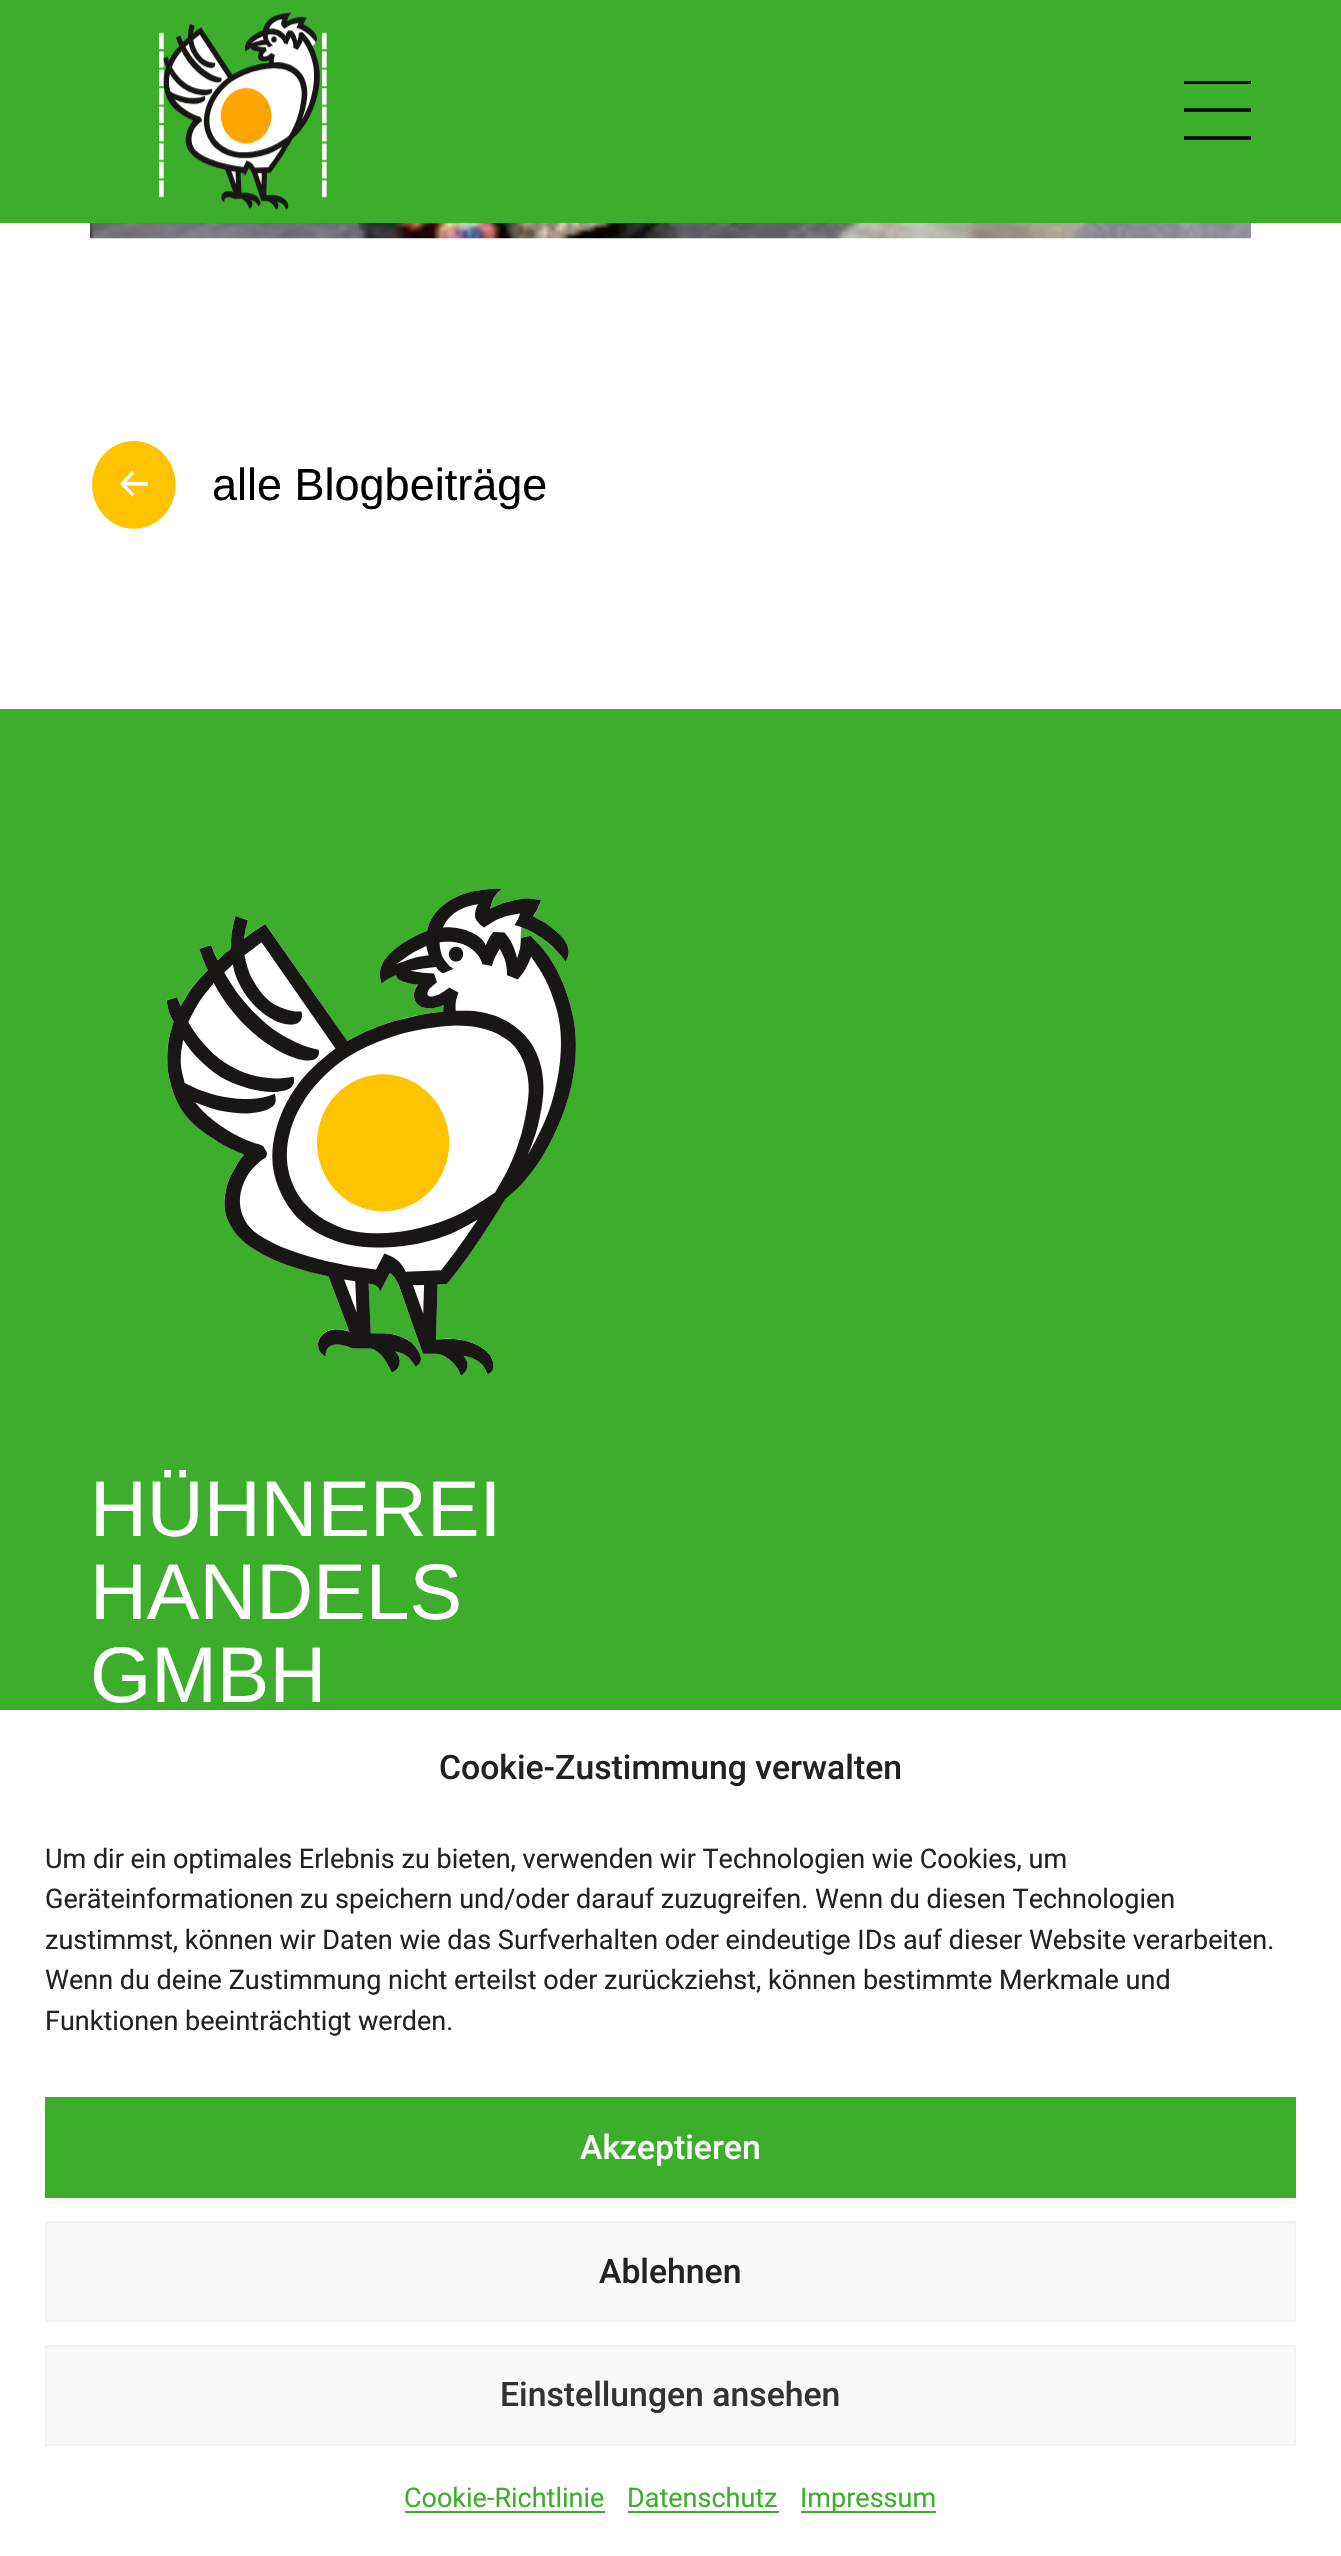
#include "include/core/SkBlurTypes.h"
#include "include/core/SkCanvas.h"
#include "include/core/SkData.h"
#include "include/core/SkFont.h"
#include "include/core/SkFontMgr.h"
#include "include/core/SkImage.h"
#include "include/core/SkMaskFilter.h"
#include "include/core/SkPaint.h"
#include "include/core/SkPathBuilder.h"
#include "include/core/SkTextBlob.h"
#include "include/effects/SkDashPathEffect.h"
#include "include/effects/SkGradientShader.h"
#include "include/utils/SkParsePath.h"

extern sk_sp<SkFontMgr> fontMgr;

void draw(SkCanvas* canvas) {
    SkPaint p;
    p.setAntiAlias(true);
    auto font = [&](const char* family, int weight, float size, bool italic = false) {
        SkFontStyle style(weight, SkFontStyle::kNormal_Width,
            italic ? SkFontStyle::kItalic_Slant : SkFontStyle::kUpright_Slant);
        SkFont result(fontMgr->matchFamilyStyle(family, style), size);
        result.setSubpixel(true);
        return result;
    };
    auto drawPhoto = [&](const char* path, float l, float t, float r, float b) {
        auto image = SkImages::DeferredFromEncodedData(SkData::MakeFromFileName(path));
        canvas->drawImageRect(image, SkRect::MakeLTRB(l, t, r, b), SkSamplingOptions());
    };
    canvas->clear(0xFFFFFFFF);
    p.setColor(0xFF3DAE2B);
    canvas->drawRect(SkRect::MakeLTRB(0, 0, 1341, 223), p);
    drawPhoto("media/1.png", 159, 12, 327, 211);
    p.setColor(0xFF000000);
    canvas->drawRect(SkRect::MakeLTRB(1184, 81, 1251, 84), p);
    canvas->save();
    canvas->clipRect(SkRect::MakeLTRB(1184, 77, 1251, 144));
    p.setStyle(SkPaint::kStroke_Style);
    p.setStrokeWidth(3.4f);
    canvas->drawPath(SkPathBuilder().moveTo(1183.5f, 110).lineTo(1251, 110).detach(), p);
    canvas->drawPath(SkPathBuilder().moveTo(1183.5f, 138).lineTo(1251, 138).detach(), p);
    canvas->restore();
    drawPhoto("media/2.png", 90, 223, 1251, 239);
    drawPhoto("media/3.png", 92, 441, 176, 529);
    auto font1 = font("Liberation Sans", 400, 45);
    p.setStyle(SkPaint::kFill_Style);
    canvas->drawString("alle Blogbeiträge", 212, 500, font1, p);
    p.setColor(0xFF3DAE2B);
    canvas->drawRect(SkRect::MakeLTRB(0, 709, 1341, 1710), p);
    drawPhoto("media/4.png", 167, 889, 576, 1376);
    auto font2 = font("Liberation Sans", 400, 78.75f);
    p.setColor(0xFFFFFFFF);
    {
        const struct { const char* s; float x, y; } items[] = {
            {"HÜHNEREI", 90, 1536},
            {"HANDELS", 90, 1619},
            {"GMBH", 90, 1702},
        };
        for (auto [s, x, y] : items) {
            canvas->drawString(s, x, y, font2, p);
        }
    }
    auto font3 = font("Roboto", 500, 33.75f);
    p.setColor(0xFF222222);
    canvas->drawString("Cookie-Zustimmung verwalten", 439, 1779, font3, p);
    auto font4 = font("Roboto", 400, 27);
    {
        const struct { const char* s; float x, y; } items[] = {
            {"Um dir ein optimales Erlebnis zu bieten, verwenden wir Technologien wie Cookies, um", 45, 1868},
            {"Geräteinformationen zu speichern und/oder darauf zuzugreifen. Wenn du diesen Technologien", 45, 1908},
            {"zustimmst, können wir Daten wie das Surfverhalten oder eindeutige IDs auf dieser Website verarbeiten.", 45, 1949},
            {"Wenn du deine Zustimmung nicht erteilst oder zurückziehst, können bestimmte Merkmale und", 45, 1989},
            {"Funktionen beeinträchtigt werden.", 45, 2030},
        };
        for (auto [s, x, y] : items) {
            canvas->drawString(s, x, y, font4, p);
        }
    }
    p.setColor(0xFF3DAE2B);
    canvas->drawRect(SkRect::MakeLTRB(45, 2097, 1296, 2198), p);
    p.setColor(0xFFFFFFFF);
    canvas->drawString("Akzeptieren", 580, 2159, font3, p);
    p.setColor(0xFFF9F9F9);
    canvas->drawRect(SkRect::MakeLTRB(46, 2222, 1295, 2321), p);
    p.setStyle(SkPaint::kStroke_Style);
    p.setStrokeWidth(2);
    p.setColor(0xFFF2F2F2);
    canvas->drawRect(SkRect::MakeLTRB(46, 2222, 1295, 2321), p);
    p.setStyle(SkPaint::kFill_Style);
    p.setColor(0xFF222222);
    canvas->drawString("Ablehnen", 599, 2283, font3, p);
    p.setColor(0xFFF9F9F9);
    canvas->drawRect(SkRect::MakeLTRB(46, 2346, 1295, 2445), p);
    p.setStyle(SkPaint::kStroke_Style);
    p.setColor(0xFFF2F2F2);
    canvas->drawRect(SkRect::MakeLTRB(46, 2346, 1295, 2445), p);
    p.setStyle(SkPaint::kFill_Style);
    p.setColor(0xFF333333);
    canvas->drawString("Einstellungen ansehen", 500, 2406, font3, p);
    p.setColor(0xFF3DAE2B);
    canvas->drawString("Cookie-Richtlinie", 404, 2507, font4, p);
    canvas->drawRect(SkRect::MakeLTRB(405, 2511, 605, 2513), p);
    canvas->drawString("Datenschutz", 627, 2507, font4, p);
    canvas->drawRect(SkRect::MakeLTRB(628, 2511, 779, 2513), p);
    canvas->drawRect(SkRect::MakeLTRB(801, 2511, 936, 2513), p);
    canvas->drawString("Impressum", 800, 2507, font4, p);
}
